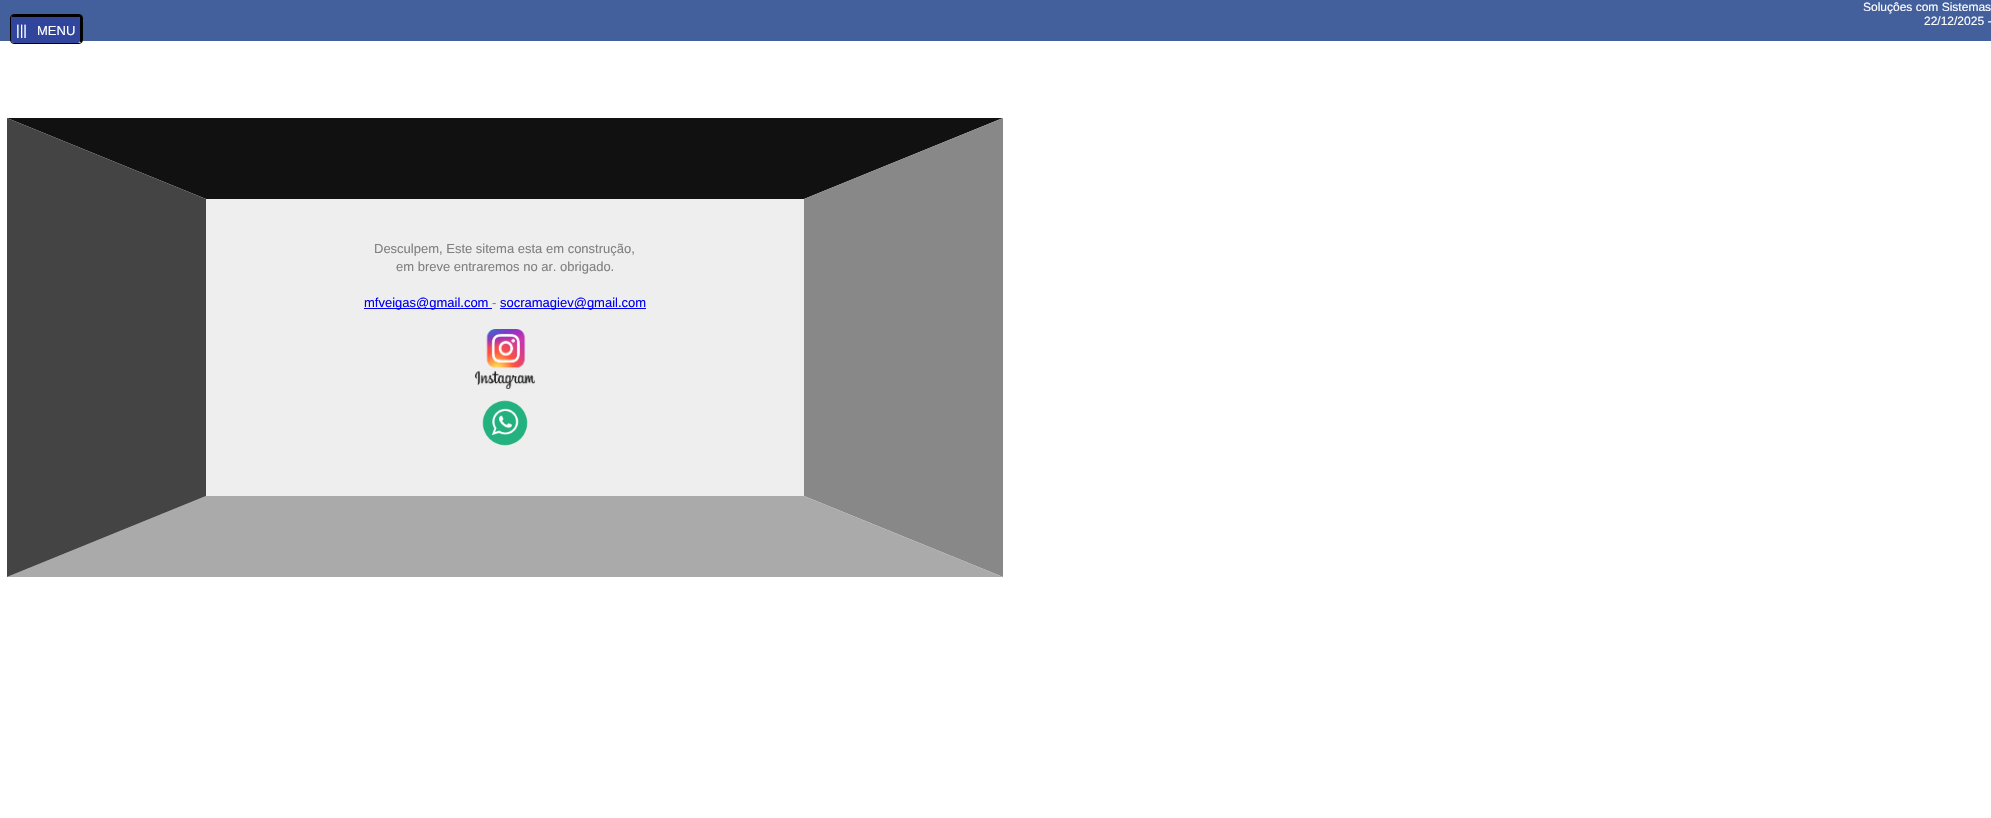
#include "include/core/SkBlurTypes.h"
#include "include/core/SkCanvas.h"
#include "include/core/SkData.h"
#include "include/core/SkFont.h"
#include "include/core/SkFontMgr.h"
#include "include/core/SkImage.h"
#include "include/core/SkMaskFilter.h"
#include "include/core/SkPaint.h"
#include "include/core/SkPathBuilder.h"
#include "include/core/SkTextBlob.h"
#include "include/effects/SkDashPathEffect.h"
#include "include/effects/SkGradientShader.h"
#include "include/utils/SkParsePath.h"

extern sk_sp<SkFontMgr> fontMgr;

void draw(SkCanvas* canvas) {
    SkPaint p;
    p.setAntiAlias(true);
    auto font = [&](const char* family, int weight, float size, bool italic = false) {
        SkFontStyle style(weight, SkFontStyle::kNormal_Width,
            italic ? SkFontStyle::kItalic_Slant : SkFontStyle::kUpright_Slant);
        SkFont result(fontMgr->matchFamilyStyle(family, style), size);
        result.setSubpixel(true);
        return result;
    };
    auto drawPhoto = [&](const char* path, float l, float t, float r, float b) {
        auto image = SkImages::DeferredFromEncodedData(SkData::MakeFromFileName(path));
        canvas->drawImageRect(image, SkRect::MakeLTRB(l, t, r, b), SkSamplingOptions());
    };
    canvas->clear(0xFFFFFFFF);
    p.setColor(0xFF43609C);
    canvas->drawRect(SkRect::MakeLTRB(0, 0, 1991, 41), p);
    auto font1 = font("Liberation Sans", 400, 12);
    p.setColor(0xFFFFFFFF);
    canvas->drawString("Soluçôes com Sistemas", 1863, 11, font1, p);
    canvas->drawString("22/12/2025 -", 1924, 25, font1, p);
    p.setColor(0xFF31459D);
    canvas->drawPath(SkPathBuilder().moveTo(14, 17).lineTo(79, 17).lineTo(80, 18).lineTo(80, 33).cubicTo(80, 45, 82, 43, 68, 43).lineTo(25, 43).cubicTo(10, 43, 11, 45, 11, 33).lineTo(11, 22).cubicTo(11, 18, 10, 17, 14, 17).close().detach(), p);
    p.setStyle(SkPaint::kStroke_Style);
    p.setStrokeWidth(1);
    p.setColor(0xFF000000);
    canvas->drawRoundRect(SkRect::MakeLTRB(10.5f, 14.5f, 82.5f, 43.5f), 3.5f, 3.5f, p);
    p.setStyle(SkPaint::kFill_Style);
    canvas->drawRect(SkRect::MakeLTRB(12, 15, 81, 17), p);
    canvas->drawRect(SkRect::MakeLTRB(80, 16, 82, 42), p);
    auto font2 = font("Liberation Sans", 400, 14);
    p.setColor(0xFFFFFFFF);
    canvas->drawString("|||", 16, 35, font2, p);
    auto font3 = font("Liberation Sans", 400, 13);
    canvas->drawString("MENU", 37, 35, font3, p);
    p.setColor(0xFFEEEEEE);
    canvas->drawRect(SkRect::MakeLTRB(206, 199, 804, 496), p);
    p.setColor(0xFF111111);
    canvas->drawPath(SkPathBuilder().moveTo(7, 118).lineTo(1003, 118).lineTo(804, 199).lineTo(206, 199).close().detach(), p);
    p.setColor(0xFF888888);
    canvas->drawPath(SkPathBuilder().moveTo(1003, 118).lineTo(1003, 577).lineTo(804, 496).lineTo(804, 199).close().detach(), p);
    p.setColor(0xFFAAAAAA);
    canvas->drawPath(SkPathBuilder().moveTo(1003, 577).lineTo(7, 577).lineTo(206, 496).lineTo(804, 496).close().detach(), p);
    p.setColor(0xFF444444);
    canvas->drawPath(SkPathBuilder().moveTo(7, 577).lineTo(7, 118).lineTo(206, 199).lineTo(206, 496).close().detach(), p);
    p.setColor(0xFF808080);
    canvas->drawString("Desculpem, Este sitema esta em construção,", 374, 253, font3, p);
    canvas->drawString("em breve entraremos no ar. obrigado.", 396, 271, font3, p);
    p.setColor(0xFF0000EE);
    canvas->drawRect(SkRect::MakeLTRB(364, 308, 492, 309), p);
    canvas->drawString("mfveigas@gmail.com", 364, 307, font3, p);
    p.setColor(0xFF808080);
    canvas->drawString("-", 492, 307, font3, p);
    p.setColor(0xFF0000EE);
    canvas->drawRect(SkRect::MakeLTRB(500, 308, 646, 309), p);
    canvas->drawString("socramagiev@gmail.com", 500, 307, font3, p);
    drawPhoto("media/1.png", 475, 329, 535, 389);
    drawPhoto("media/2.png", 482, 400, 528, 446);
}
